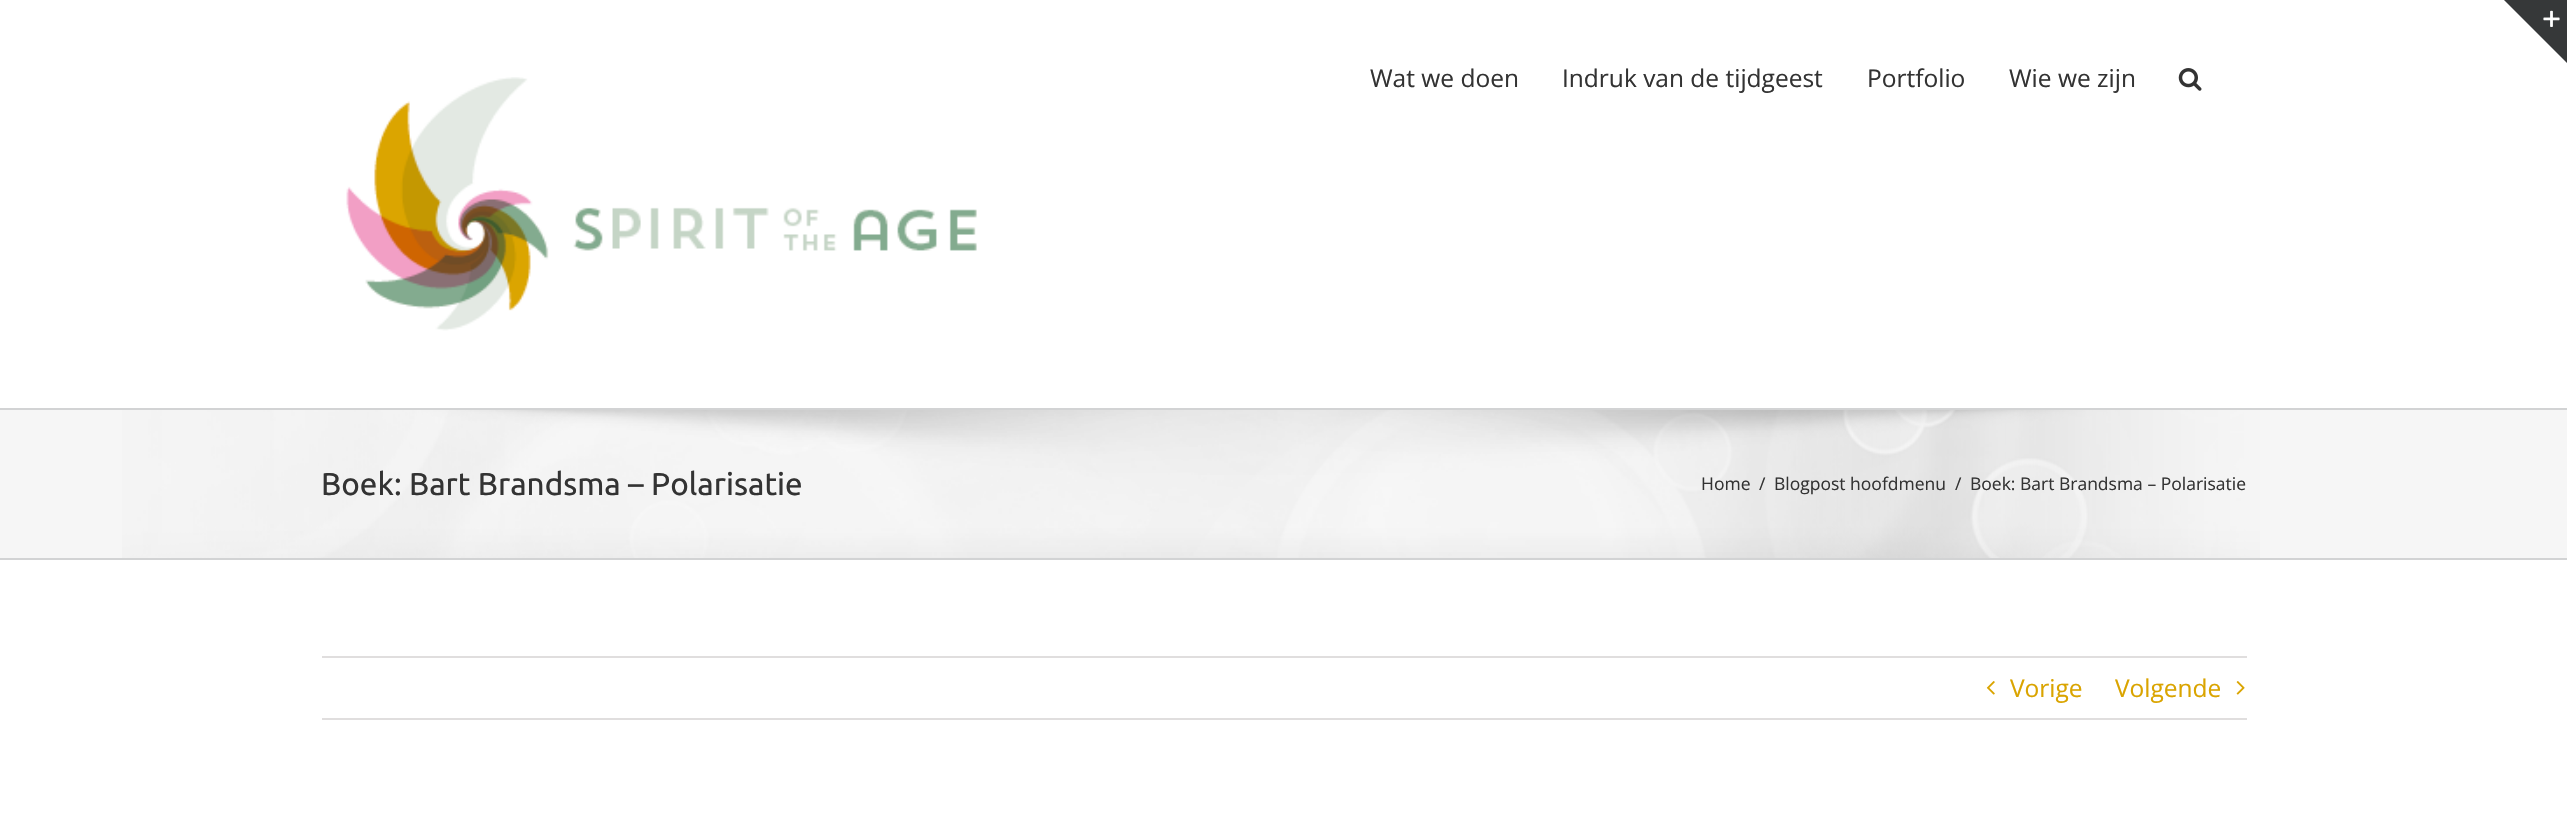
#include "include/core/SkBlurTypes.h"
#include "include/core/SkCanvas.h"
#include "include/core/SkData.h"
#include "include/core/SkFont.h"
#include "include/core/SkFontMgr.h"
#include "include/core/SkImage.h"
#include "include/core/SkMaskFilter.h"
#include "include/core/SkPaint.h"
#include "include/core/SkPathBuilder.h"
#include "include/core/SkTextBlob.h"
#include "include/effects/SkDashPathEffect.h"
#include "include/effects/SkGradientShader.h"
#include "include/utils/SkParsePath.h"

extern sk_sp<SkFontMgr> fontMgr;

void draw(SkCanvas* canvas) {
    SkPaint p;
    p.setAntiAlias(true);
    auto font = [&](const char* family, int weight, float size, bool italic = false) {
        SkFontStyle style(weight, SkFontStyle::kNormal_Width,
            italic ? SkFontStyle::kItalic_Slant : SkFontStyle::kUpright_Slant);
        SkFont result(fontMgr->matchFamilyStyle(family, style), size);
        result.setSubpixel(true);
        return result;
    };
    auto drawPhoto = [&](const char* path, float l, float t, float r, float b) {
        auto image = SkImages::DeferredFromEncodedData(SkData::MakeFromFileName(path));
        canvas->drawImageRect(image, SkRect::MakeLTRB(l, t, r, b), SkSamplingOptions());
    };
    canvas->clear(0xFFFFFFFF);
    p.setColor(0xFF363839);
    canvas->drawPath(SkPathBuilder().moveTo(2504, 0).lineTo(2567, 0).lineTo(2567, 63).close().detach(), p);
    drawPhoto("media/1.png", 2543, 10, 2560, 27);
    drawPhoto("media/2.png", 346, 77, 977, 331);
    auto font1 = font("Open Sans", 400, 24.5f);
    p.setColor(0xFF333333);
    {
        const struct { const char* s; float x, y; } items[] = {
            {"Wat we doen", 1370, 87},
            {"Indruk van de tijdgeest", 1562, 87},
            {"Portfolio", 1867, 87},
            {"Wie we zijn", 2009, 87},
        };
        for (auto [s, x, y] : items) {
            canvas->drawString(s, x, y, font1, p);
        }
    }
    drawPhoto("media/3.png", 2178, 68, 2202, 91);
    p.setColor(0xFFF6F6F6);
    canvas->drawRect(SkRect::MakeLTRB(0, 410, 2567, 558), p);
    drawPhoto("media/4.png", 122, 410, 2260, 558);
    p.setColor(0xFFD2D3D4);
    canvas->drawRect(SkRect::MakeLTRB(0, 408, 2567, 410), p);
    canvas->drawRect(SkRect::MakeLTRB(0, 558, 2567, 560), p);
    auto font2 = font("Ubuntu", 400, 31.5f);
    p.setColor(0xFF333333);
    canvas->drawString("Boek: Bart Brandsma – Polarisatie", 321, 495, font2, p);
    auto font3 = font("Open Sans", 400, 17.5f);
    {
        const struct { const char* s; float x, y; } items[] = {
            {"Home", 1701, 490},
            {"/", 1759, 490},
            {"Blogpost hoofdmenu", 1774, 490},
            {"/", 1955, 490},
            {"Boek: Bart Brandsma – Polarisatie", 1970, 490},
        };
        for (auto [s, x, y] : items) {
            canvas->drawString(s, x, y, font3, p);
        }
    }
    p.setColor(0xFFE0DEDE);
    canvas->drawRect(SkRect::MakeLTRB(322, 656, 2247, 658), p);
    canvas->drawRect(SkRect::MakeLTRB(322, 718, 2247, 720), p);
    drawPhoto("media/5.png", 1986, 681, 1995, 695);
    p.setColor(0xFFDAA400);
    canvas->drawString("Vorige", 2010, 697, font1, p);
    canvas->drawString("Volgende", 2115, 697, font1, p);
    drawPhoto("media/6.png", 2236, 681, 2245, 695);
}
